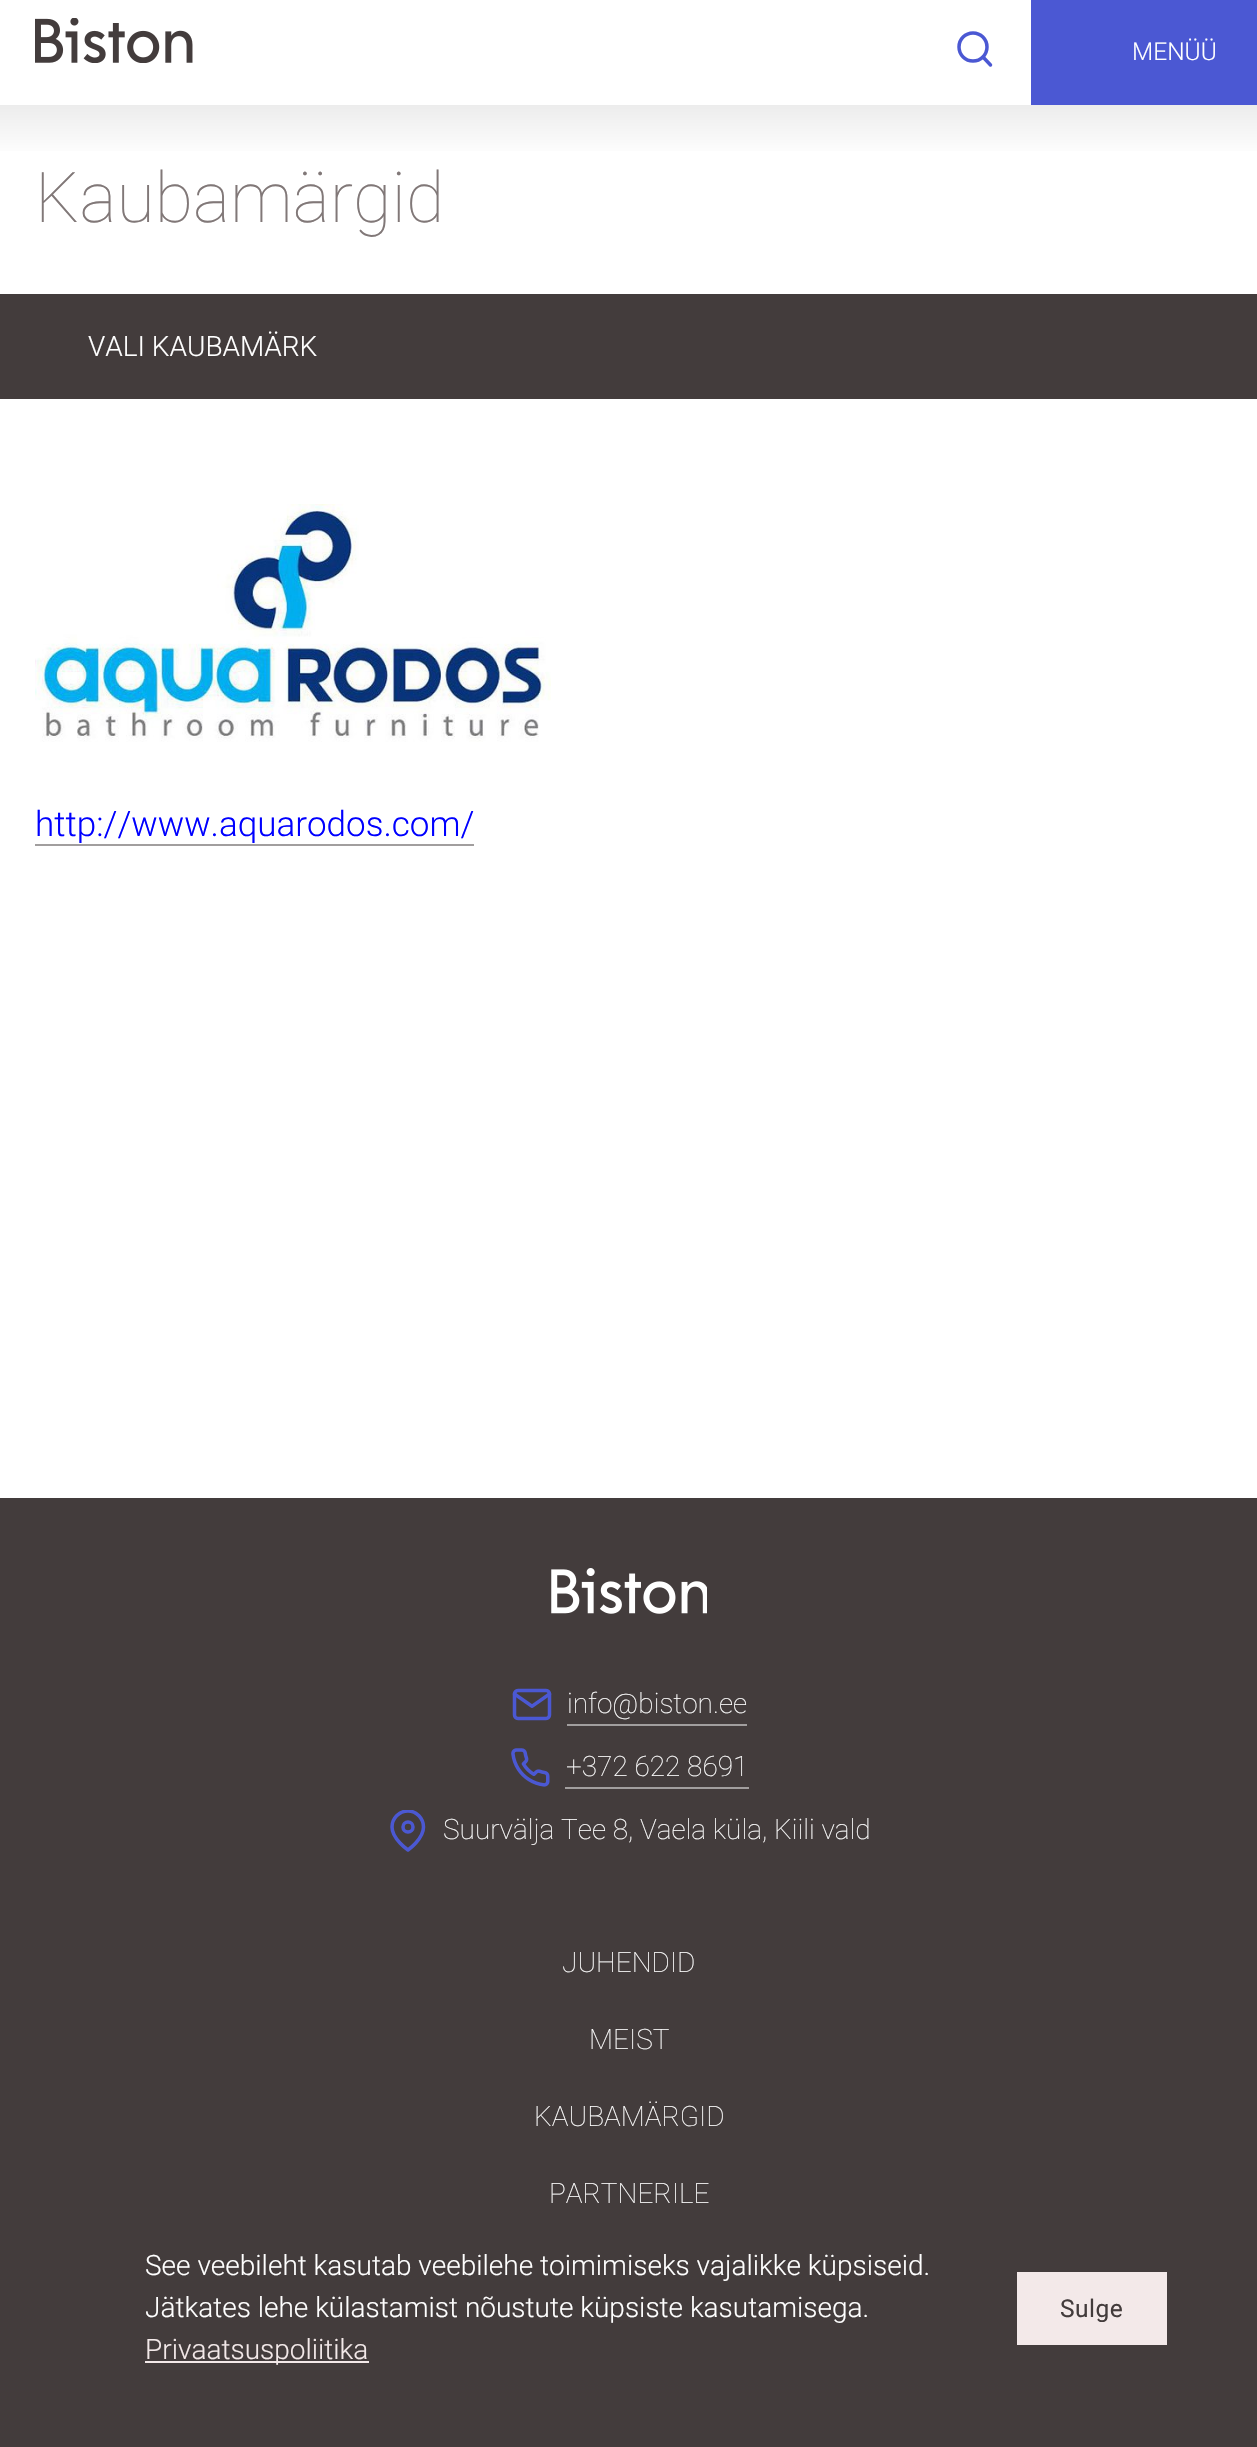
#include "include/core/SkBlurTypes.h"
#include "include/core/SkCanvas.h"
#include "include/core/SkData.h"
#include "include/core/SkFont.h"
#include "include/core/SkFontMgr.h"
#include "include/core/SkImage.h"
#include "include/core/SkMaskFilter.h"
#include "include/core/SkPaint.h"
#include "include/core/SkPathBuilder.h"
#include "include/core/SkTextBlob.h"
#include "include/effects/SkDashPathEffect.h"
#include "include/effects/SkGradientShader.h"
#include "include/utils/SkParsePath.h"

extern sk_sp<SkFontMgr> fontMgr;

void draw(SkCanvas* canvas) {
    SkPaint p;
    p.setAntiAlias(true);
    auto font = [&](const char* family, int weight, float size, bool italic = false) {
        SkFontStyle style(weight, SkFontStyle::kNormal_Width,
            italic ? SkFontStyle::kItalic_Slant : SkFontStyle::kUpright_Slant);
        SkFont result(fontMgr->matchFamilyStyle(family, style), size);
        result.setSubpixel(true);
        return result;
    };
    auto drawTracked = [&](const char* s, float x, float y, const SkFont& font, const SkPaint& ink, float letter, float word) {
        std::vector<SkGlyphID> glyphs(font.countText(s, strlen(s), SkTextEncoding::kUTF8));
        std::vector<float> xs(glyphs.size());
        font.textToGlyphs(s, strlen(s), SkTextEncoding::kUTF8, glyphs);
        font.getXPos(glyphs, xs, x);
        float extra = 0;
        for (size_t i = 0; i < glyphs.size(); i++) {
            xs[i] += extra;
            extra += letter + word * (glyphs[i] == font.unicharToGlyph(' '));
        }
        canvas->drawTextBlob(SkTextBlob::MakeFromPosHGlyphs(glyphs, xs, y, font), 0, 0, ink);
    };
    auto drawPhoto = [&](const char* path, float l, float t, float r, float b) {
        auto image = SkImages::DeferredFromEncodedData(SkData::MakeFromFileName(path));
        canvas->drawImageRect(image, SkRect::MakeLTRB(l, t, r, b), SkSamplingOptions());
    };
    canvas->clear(0xFFFFFFFF);
    drawPhoto("media/1.png", 35, 18, 193, 63);
    p.setStyle(SkPaint::kStroke_Style);
    p.setStrokeWidth(3.5f);
    p.setColor(0xFF4B58D3);
    canvas->drawCircle(973, 47, 14, p);
    p.setStrokeCap(SkPaint::kRound_Cap);
    p.setStrokeJoin(SkPaint::kRound_Join);
    canvas->drawPath(SkPathBuilder().moveTo(990.5f, 65).lineTo(983, 57).detach(), p);
    p.setStyle(SkPaint::kFill_Style);
    canvas->drawRect(SkRect::MakeLTRB(1031, 0, 1257, 105), p);
    auto font1 = font("Roboto", 300, 24.5f);
    p.setColor(0xFFFFFFFF);
    canvas->drawString("MENÜÜ", 1132, 60, font1, p);
    {
        const SkColor colors[] = {0xFFECECEC, 0xFFFFFFFF};
        const float stops[] = {0, 1};
        const SkPoint ends[] = {{629, 105}, {629, 158}};
        p.setShader(SkGradientShader::MakeLinear(ends, colors, stops, 2, SkTileMode::kClamp));
        p.setAlpha(255);
    }
    canvas->drawRect(SkRect::MakeLTRB(0, 105, 1257, 151), p);
    auto font2 = font("Roboto", 100, 70);
    p.setShader(nullptr);
    p.setColor(0xFF817878);
    canvas->drawString("Kaubamärgid", 35, 222, font2, p);
    p.setColor(0xFF433C3C);
    canvas->drawRect(SkRect::MakeLTRB(0, 294, 1257, 399), p);
    auto font3 = font("Roboto", 300, 28);
    p.setColor(0xFFFFFFFF);
    canvas->drawString("VALI KAUBAMÄRK", 88, 356, font3, p);
    drawPhoto("media/2.png", 35, 504, 551, 742);
    auto font4 = font("Roboto", 300, 35);
    p.setColor(0xFF0000FF);
    canvas->drawString("http://www.aquarodos.com/", 35, 836, font4, p);
    p.setColor(0xFFA19E9E);
    canvas->drawRect(SkRect::MakeLTRB(35, 844, 474, 846), p);
    p.setColor(0xFF433C3C);
    canvas->drawRect(SkRect::MakeLTRB(0, 1498, 1257, 2447), p);
    drawPhoto("media/3.png", 551, 1568, 707, 1614);
    drawPhoto("media/4.png", 512, 1688, 552, 1721);
    auto font5 = font("Roboto", 100, 28);
    p.setColor(0xFFFFFFFF);
    canvas->drawString("info@biston.ee", 567, 1713, font5, p);
    p.setColor(0xFFA19E9E);
    canvas->drawRect(SkRect::MakeLTRB(567, 1724, 747, 1726), p);
    drawPhoto("media/5.png", 511, 1748, 550, 1787);
    p.setColor(0xFFFFFFFF);
    canvas->drawString("+372 622 8691", 566, 1776, font5, p);
    p.setColor(0xFFA19E9E);
    canvas->drawRect(SkRect::MakeLTRB(565, 1787, 749, 1789), p);
    canvas->save();
    canvas->clipRect(SkRect::MakeLTRB(387, 1810, 429, 1852));
    p.setStyle(SkPaint::kStroke_Style);
    p.setColor(0xFF4B58D3);
    canvas->drawPath(SkPathBuilder().moveTo(423.5f, 1827).cubicTo(423.5f, 1839, 408, 1850, 408, 1850).cubicTo(408, 1850, 392, 1839, 392, 1827).cubicTo(392, 1818.5f, 399, 1811, 408, 1811).cubicTo(416.5f, 1811, 423.5f, 1818.5f, 423.5f, 1827).close().detach(), p);
    canvas->restore();
    p.setStrokeCap(SkPaint::kButt_Cap);
    p.setStrokeJoin(SkPaint::kMiter_Join);
    canvas->drawCircle(408, 1827, 5, p);
    p.setStyle(SkPaint::kFill_Style);
    p.setColor(0xFFFFFFFF);
    {
        const struct { const char* s; float x, y; } items[] = {
            {"Suurvälja Tee 8, Vaela küla, Kiili vald", 443, 1839},
            {"JUHENDID", 562, 1972},
            {"MEIST", 589, 2049},
            {"KAUBAMÄRGID", 534, 2126},
            {"PARTNERILE", 549, 2203},
        };
        for (auto [s, x, y] : items) {
            canvas->drawString(s, x, y, font5, p);
        }
    }
    canvas->drawString("See veebileht kasutab veebilehe toimimiseks vajalikke küpsiseid.", 145, 2275, font3, p);
    canvas->drawString("Jätkates lehe külastamist nõustute küpsiste kasutamisega.", 145, 2317, font3, p);
    p.setColor(0xFFF3E9E9);
    canvas->drawRect(SkRect::MakeLTRB(145, 2361, 369, 2363), p);
    canvas->drawString("Privaatsuspoliitika", 145, 2359, font3, p);
    canvas->drawRect(SkRect::MakeLTRB(1017, 2272, 1167, 2345), p);
    auto font6 = font("Roboto", 400, 24.5f);
    p.setColor(0xFF433C3C);
    drawTracked("Sulge", 1060, 2317, font6, p, 0.5f, 0);
}
